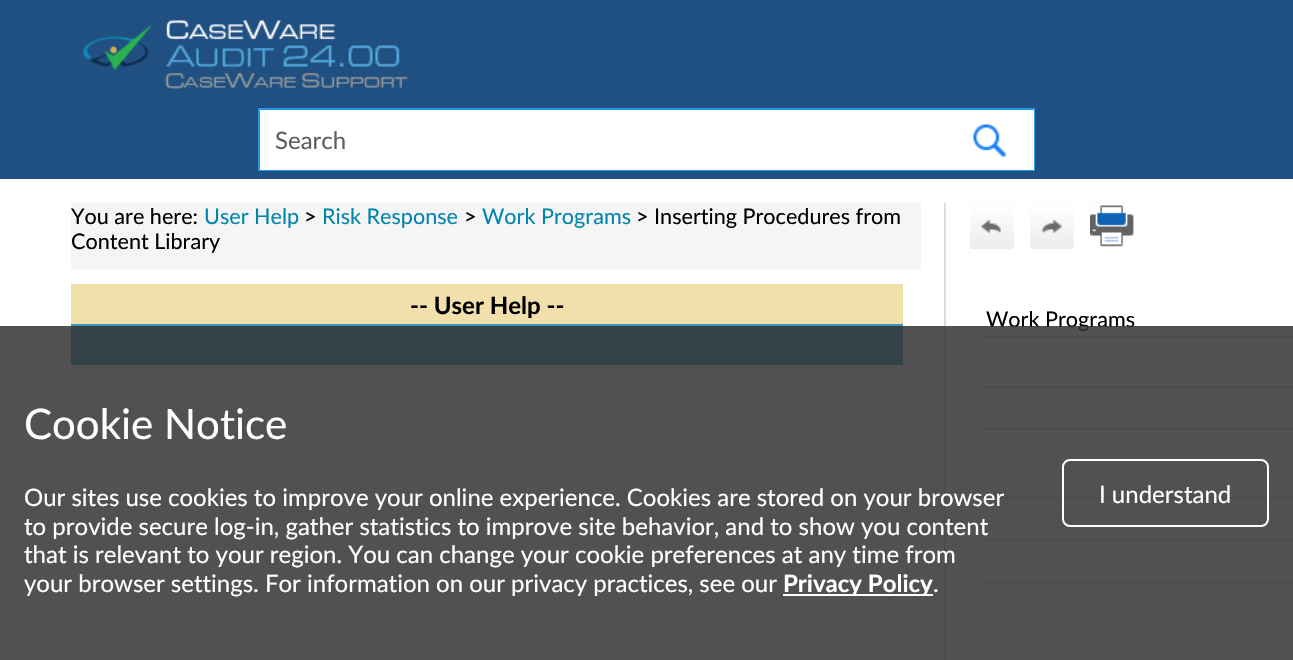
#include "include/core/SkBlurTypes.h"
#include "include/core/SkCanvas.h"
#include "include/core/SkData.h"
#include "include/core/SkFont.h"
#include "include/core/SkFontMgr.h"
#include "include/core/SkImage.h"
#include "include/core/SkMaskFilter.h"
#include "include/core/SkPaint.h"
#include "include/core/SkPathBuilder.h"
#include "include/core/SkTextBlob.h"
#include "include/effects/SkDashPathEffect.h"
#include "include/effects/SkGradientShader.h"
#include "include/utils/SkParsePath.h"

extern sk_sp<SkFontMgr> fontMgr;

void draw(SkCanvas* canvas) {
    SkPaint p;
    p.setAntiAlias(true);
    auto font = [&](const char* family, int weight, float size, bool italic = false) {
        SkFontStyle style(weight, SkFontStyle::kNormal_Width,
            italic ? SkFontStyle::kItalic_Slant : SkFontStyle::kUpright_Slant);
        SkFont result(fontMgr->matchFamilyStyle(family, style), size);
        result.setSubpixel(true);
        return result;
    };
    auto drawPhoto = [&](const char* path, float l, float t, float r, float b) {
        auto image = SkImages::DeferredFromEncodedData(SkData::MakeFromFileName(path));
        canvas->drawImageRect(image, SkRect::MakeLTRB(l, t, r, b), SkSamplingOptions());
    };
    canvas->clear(0xFFFFFFFF);
    p.setColor(0xFF205081);
    canvas->drawRect(SkRect::MakeLTRB(0, 0, 1293, 179), p);
    drawPhoto("media/1.png", 83, 20, 408, 89);
    p.setStyle(SkPaint::kStroke_Style);
    p.setStrokeWidth(2);
    p.setColor(0xFF2199E8);
    canvas->drawRect(SkRect::MakeLTRB(259, 109, 1034, 170), p);
    p.setStyle(SkPaint::kFill_Style);
    p.setColor(0xFFFFFFFF);
    canvas->drawRect(SkRect::MakeLTRB(260, 110, 1034, 170), p);
    auto font1 = font("Lato", 400, 24);
    p.setColor(0xFF5F5F5F);
    canvas->drawString("Search", 275, 149, font1, p);
    drawPhoto("media/2.png", 973, 124, 1007, 158);
    p.setColor(0xFFDDDDDD);
    canvas->drawRect(SkRect::MakeLTRB(944, 203, 946, 660), p);
    p.setColor(0xFFF5F5F5);
    canvas->drawRect(SkRect::MakeLTRB(71, 203, 921, 269), p);
    auto font2 = font("Lato", 400, 21.6f);
    p.setColor(0xFF000000);
    canvas->drawString("You are here:", 71, 224, font2, p);
    p.setColor(0xFF0085AD);
    canvas->drawString("User Help", 204, 224, font2, p);
    p.setColor(0xFF000000);
    canvas->drawString(">", 304, 224, font2, p);
    p.setColor(0xFF0085AD);
    canvas->drawString("Risk Response", 322, 224, font2, p);
    p.setColor(0xFF000000);
    canvas->drawString(">", 464, 224, font2, p);
    p.setColor(0xFF0085AD);
    canvas->drawString("Work Programs", 482, 224, font2, p);
    p.setColor(0xFF000000);
    canvas->drawString("> Inserting Procedures from", 636, 224, font2, p);
    canvas->drawString("Content Library", 71, 249, font2, p);
    p.setColor(0xFFF2E0AC);
    canvas->drawRect(SkRect::MakeLTRB(71, 284, 903, 324), p);
    auto font3 = font("Lato", 700, 24);
    p.setColor(0xFF000000);
    canvas->drawString("-- User Help --", 410, 314, font3, p);
    p.setColor(0xFF3895C0);
    canvas->drawRect(SkRect::MakeLTRB(71, 324, 903, 365), p);
    drawPhoto("media/3.png", 967, 202, 1016, 249);
    p.setStyle(SkPaint::kStroke_Style);
    p.setColor(0xFFFFFFFF);
    canvas->drawRoundRect(SkRect::MakeLTRB(969, 204, 1015, 250), 4, 4, p);
    drawPhoto("media/4.png", 1027, 202, 1076, 249);
    canvas->drawRoundRect(SkRect::MakeLTRB(1029, 204, 1075, 250), 4, 4, p);
    drawPhoto("media/5.png", 1089, 202, 1134, 247);
    canvas->drawRoundRect(SkRect::MakeLTRB(1089, 204, 1135, 250), 4, 4, p);
    p.setStyle(SkPaint::kFill_Style);
    p.setColor(0xFFDDDDDD);
    canvas->drawRect(SkRect::MakeLTRB(983, 336, 1293, 338), p);
    p.setColor(0xFF000000);
    canvas->drawString("Work Programs", 986, 327, font2, p);
    {
        const struct { float l, t, r, b; SkColor color; } items[] = {
            {983, 386, 1293, 388, 0xFFDDDDDD},
            {983, 428, 1293, 430, 0xFFDDDDDD},
            {983, 497, 1293, 499, 0xFFDDDDDD},
            {983, 539, 1293, 541, 0xFFDDDDDD},
            {983, 581, 1293, 583, 0xFFDDDDDD},
            {983, 623, 1293, 625, 0xFFDDDDDD},
            {0, 326, 1293, 660, 0xD9323232},
        };
        for (auto [l, t, r, b, color] : items) {
            p.setColor(color);
            canvas->drawRect(SkRect::MakeLTRB(l, t, r, b), p);
        }
    }
    auto font4 = font("Lato", 400, 42);
    p.setColor(0xFFFFFFFF);
    canvas->drawString("Cookie Notice", 24, 439, font4, p);
    {
        const struct { const char* s; float x, y; } items[] = {
            {"Our sites use cookies to improve your online experience. Cookies are stored on your browser", 24, 506},
            {"to provide secure log-in, gather statistics to improve site behavior, and to show you content", 24, 535},
            {"that is relevant to your region. You can change your cookie preferences at any time from", 24, 563},
            {"your browser settings. For information on our privacy practices, see our", 24, 592},
        };
        for (auto [s, x, y] : items) {
            canvas->drawString(s, x, y, font1, p);
        }
    }
    canvas->drawRect(SkRect::MakeLTRB(783, 594, 933, 596), p);
    canvas->drawString("Privacy Policy", 783, 592, font3, p);
    canvas->drawString(".", 933, 592, font1, p);
    p.setStyle(SkPaint::kStroke_Style);
    canvas->drawRoundRect(SkRect::MakeLTRB(1063, 460, 1268, 526), 7, 7, p);
    p.setStyle(SkPaint::kFill_Style);
    canvas->drawString("I understand", 1099, 503, font1, p);
}
